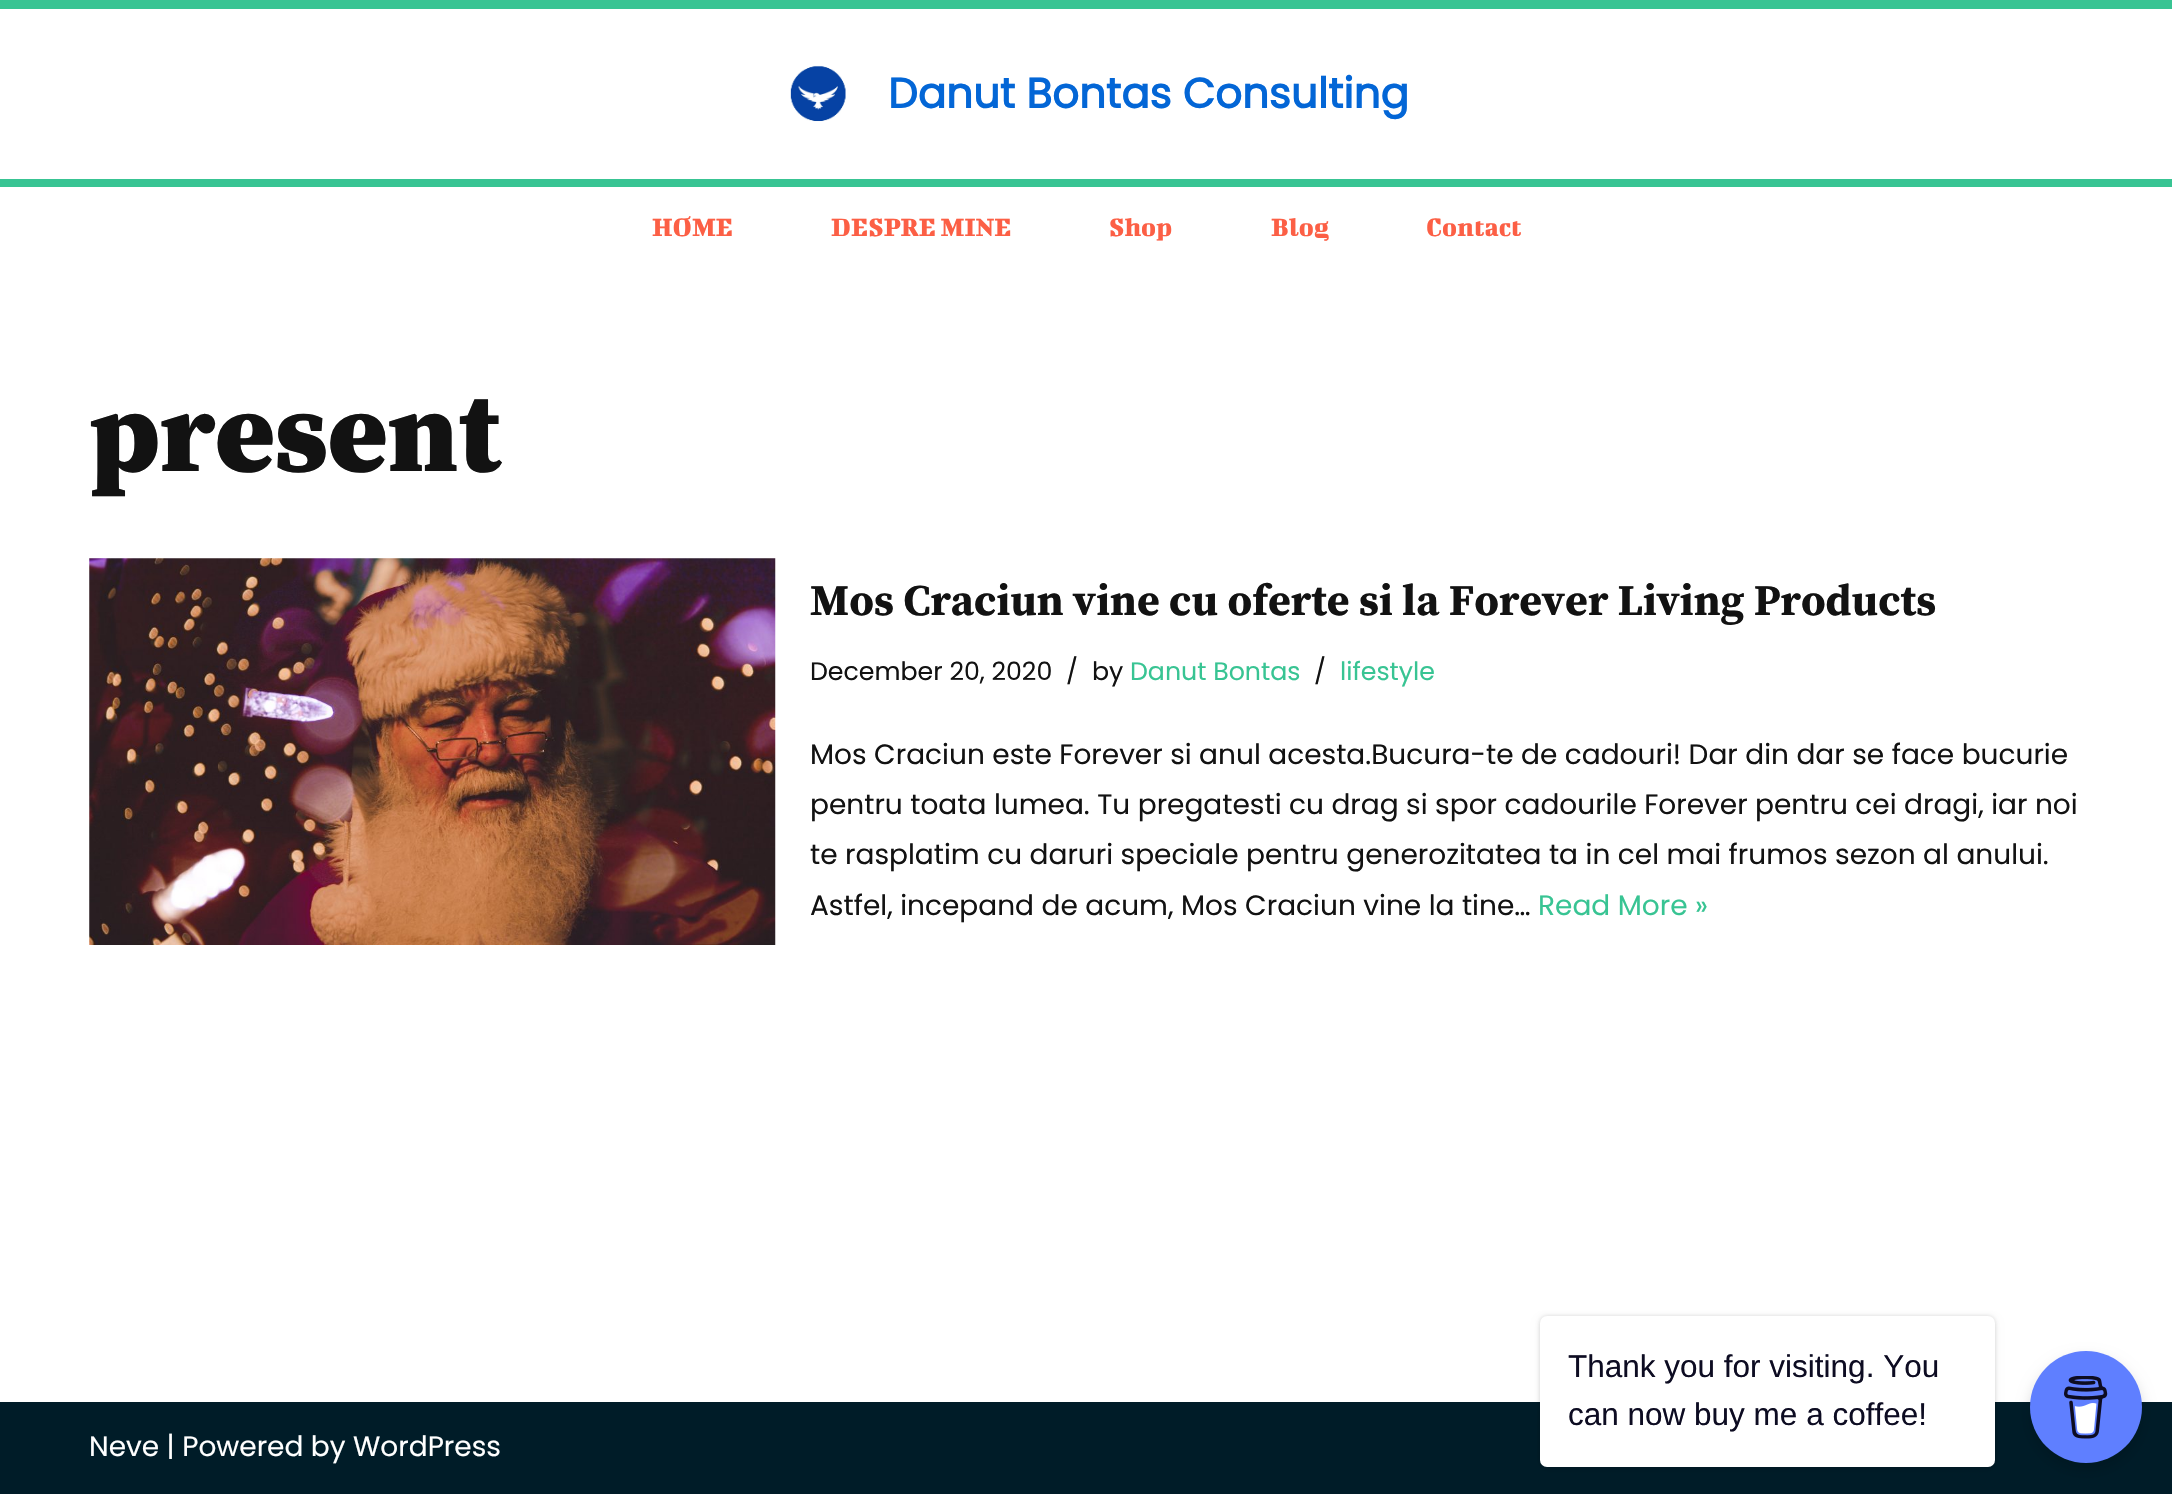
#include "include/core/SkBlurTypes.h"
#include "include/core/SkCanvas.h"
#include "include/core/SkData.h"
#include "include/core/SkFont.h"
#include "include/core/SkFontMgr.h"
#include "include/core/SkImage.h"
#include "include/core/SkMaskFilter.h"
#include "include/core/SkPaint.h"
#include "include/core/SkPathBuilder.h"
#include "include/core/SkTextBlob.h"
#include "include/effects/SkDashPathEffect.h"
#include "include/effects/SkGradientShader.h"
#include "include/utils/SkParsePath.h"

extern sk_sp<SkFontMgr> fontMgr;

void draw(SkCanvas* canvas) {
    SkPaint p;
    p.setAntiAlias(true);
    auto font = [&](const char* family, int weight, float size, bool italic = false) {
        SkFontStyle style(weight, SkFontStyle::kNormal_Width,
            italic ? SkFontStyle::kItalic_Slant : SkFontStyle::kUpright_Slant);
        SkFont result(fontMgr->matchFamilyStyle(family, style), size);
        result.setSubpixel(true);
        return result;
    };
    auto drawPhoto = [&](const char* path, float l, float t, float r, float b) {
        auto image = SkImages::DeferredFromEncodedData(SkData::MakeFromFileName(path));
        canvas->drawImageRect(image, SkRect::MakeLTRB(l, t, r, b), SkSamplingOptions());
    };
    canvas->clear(0xFFFFFFFF);
    p.setColor(0xFF38C493);
    canvas->drawRect(SkRect::MakeLTRB(0, 0, 2172, 9), p);
    canvas->drawRect(SkRect::MakeLTRB(0, 179, 2172, 187), p);
    drawPhoto("media/1.png", 790, 65, 846, 122);
    auto font1 = font("Poppins", 700, 42);
    p.setColor(0xFF0366D6);
    canvas->drawString("Danut Bontas Consulting", 888, 108, font1, p);
    auto font2 = font("Bigshot One", 400, 28);
    p.setColor(0xFFFC5F45);
    {
        const struct { const char* s; float x, y; } items[] = {
            {"HOME", 652, 236},
            {"DESPRE MINE", 831, 236},
            {"Shop", 1109, 236},
            {"Blog", 1271, 236},
            {"Contact", 1426, 236},
        };
        for (auto [s, x, y] : items) {
            canvas->drawString(s, x, y, font2, p);
        }
    }
    auto font3 = font("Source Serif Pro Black", 900, 114);
    p.setColor(0xFF121212);
    canvas->drawString("present", 89, 471, font3, p);
    drawPhoto("media/2.png", 89, 558, 776, 945);
    auto font4 = font("Source Serif Pro", 700, 43.75f);
    canvas->drawString("Mos Craciun vine cu oferte si la Forever Living Products", 810, 615, font4, p);
    auto font5 = font("Poppins", 400, 25.25f);
    {
        const struct { const char* s; float x, y; } items[] = {
            {"December 20, 2020", 810, 680},
            {"/", 1066, 680},
            {"by", 1092, 680},
        };
        for (auto [s, x, y] : items) {
            canvas->drawString(s, x, y, font5, p);
        }
    }
    p.setColor(0xFF38C493);
    canvas->drawString("Danut Bontas", 1130, 680, font5, p);
    p.setColor(0xFF121212);
    canvas->drawString("/", 1314, 680, font5, p);
    p.setColor(0xFF38C493);
    canvas->drawString("lifestyle", 1340, 680, font5, p);
    auto font6 = font("Poppins", 400, 28);
    p.setColor(0xFF121212);
    {
        const struct { const char* s; float x, y; } items[] = {
            {"Mos Craciun este Forever si anul acesta.Bucura-te de cadouri! Dar din dar se face bucurie", 810, 764},
            {"pentru toata lumea. Tu pregatesti cu drag si spor cadourile Forever pentru cei dragi, iar noi", 810, 814},
            {"te rasplatim cu daruri speciale pentru generozitatea ta in cel mai frumos sezon al anului.", 810, 864},
            {"Astfel, incepand de acum, Mos Craciun vine la tine…", 810, 915},
        };
        for (auto [s, x, y] : items) {
            canvas->drawString(s, x, y, font6, p);
        }
    }
    p.setColor(0xFF38C493);
    canvas->drawString("Read More »", 1538, 915, font6, p);
    p.setColor(0xFF001C28);
    canvas->drawRect(SkRect::MakeLTRB(0, 1402, 2172, 1494), p);
    p.setColor(0xFFFFFFFF);
    canvas->drawString("Neve | Powered by WordPress", 89, 1456, font6, p);
    p.setColor(0x26000000);
    p.setMaskFilter(SkMaskFilter::MakeBlur(kNormal_SkBlurStyle, 7));
    canvas->drawRoundRect(SkRect::MakeLTRB(2030, 1358, 2142, 1470), 56, 56, p);
    p.setMaskFilter(nullptr);
    p.setColor(0xFF5F7FFF);
    canvas->drawCircle(2086, 1407, 56, p);
    drawPhoto("media/3.png", 2064, 1376, 2108, 1439);
    p.setColor(0x26000000);
    p.setMaskFilter(SkMaskFilter::MakeBlur(kNormal_SkBlurStyle, 2));
    canvas->drawRoundRect(SkRect::MakeLTRB(1540, 1316, 1995, 1467), 7, 7, p);
    p.setMaskFilter(nullptr);
    p.setColor(0x0D000000);
    p.setMaskFilter(SkMaskFilter::MakeBlur(kNormal_SkBlurStyle, 4.5f));
    canvas->drawRoundRect(SkRect::MakeLTRB(1540, 1320, 1995, 1470), 7, 7, p);
    p.setMaskFilter(nullptr);
    p.setColor(0xFFFFFFFF);
    canvas->drawRoundRect(SkRect::MakeLTRB(1540, 1316, 1995, 1467), 7, 7, p);
    auto font7 = font("Liberation Sans", 400, 31.5f);
    p.setColor(0xFF0D0C22);
    canvas->drawString("Thank you for visiting. You", 1568, 1377, font7, p);
    canvas->drawString("can now buy me a coffee!", 1568, 1425, font7, p);
}
